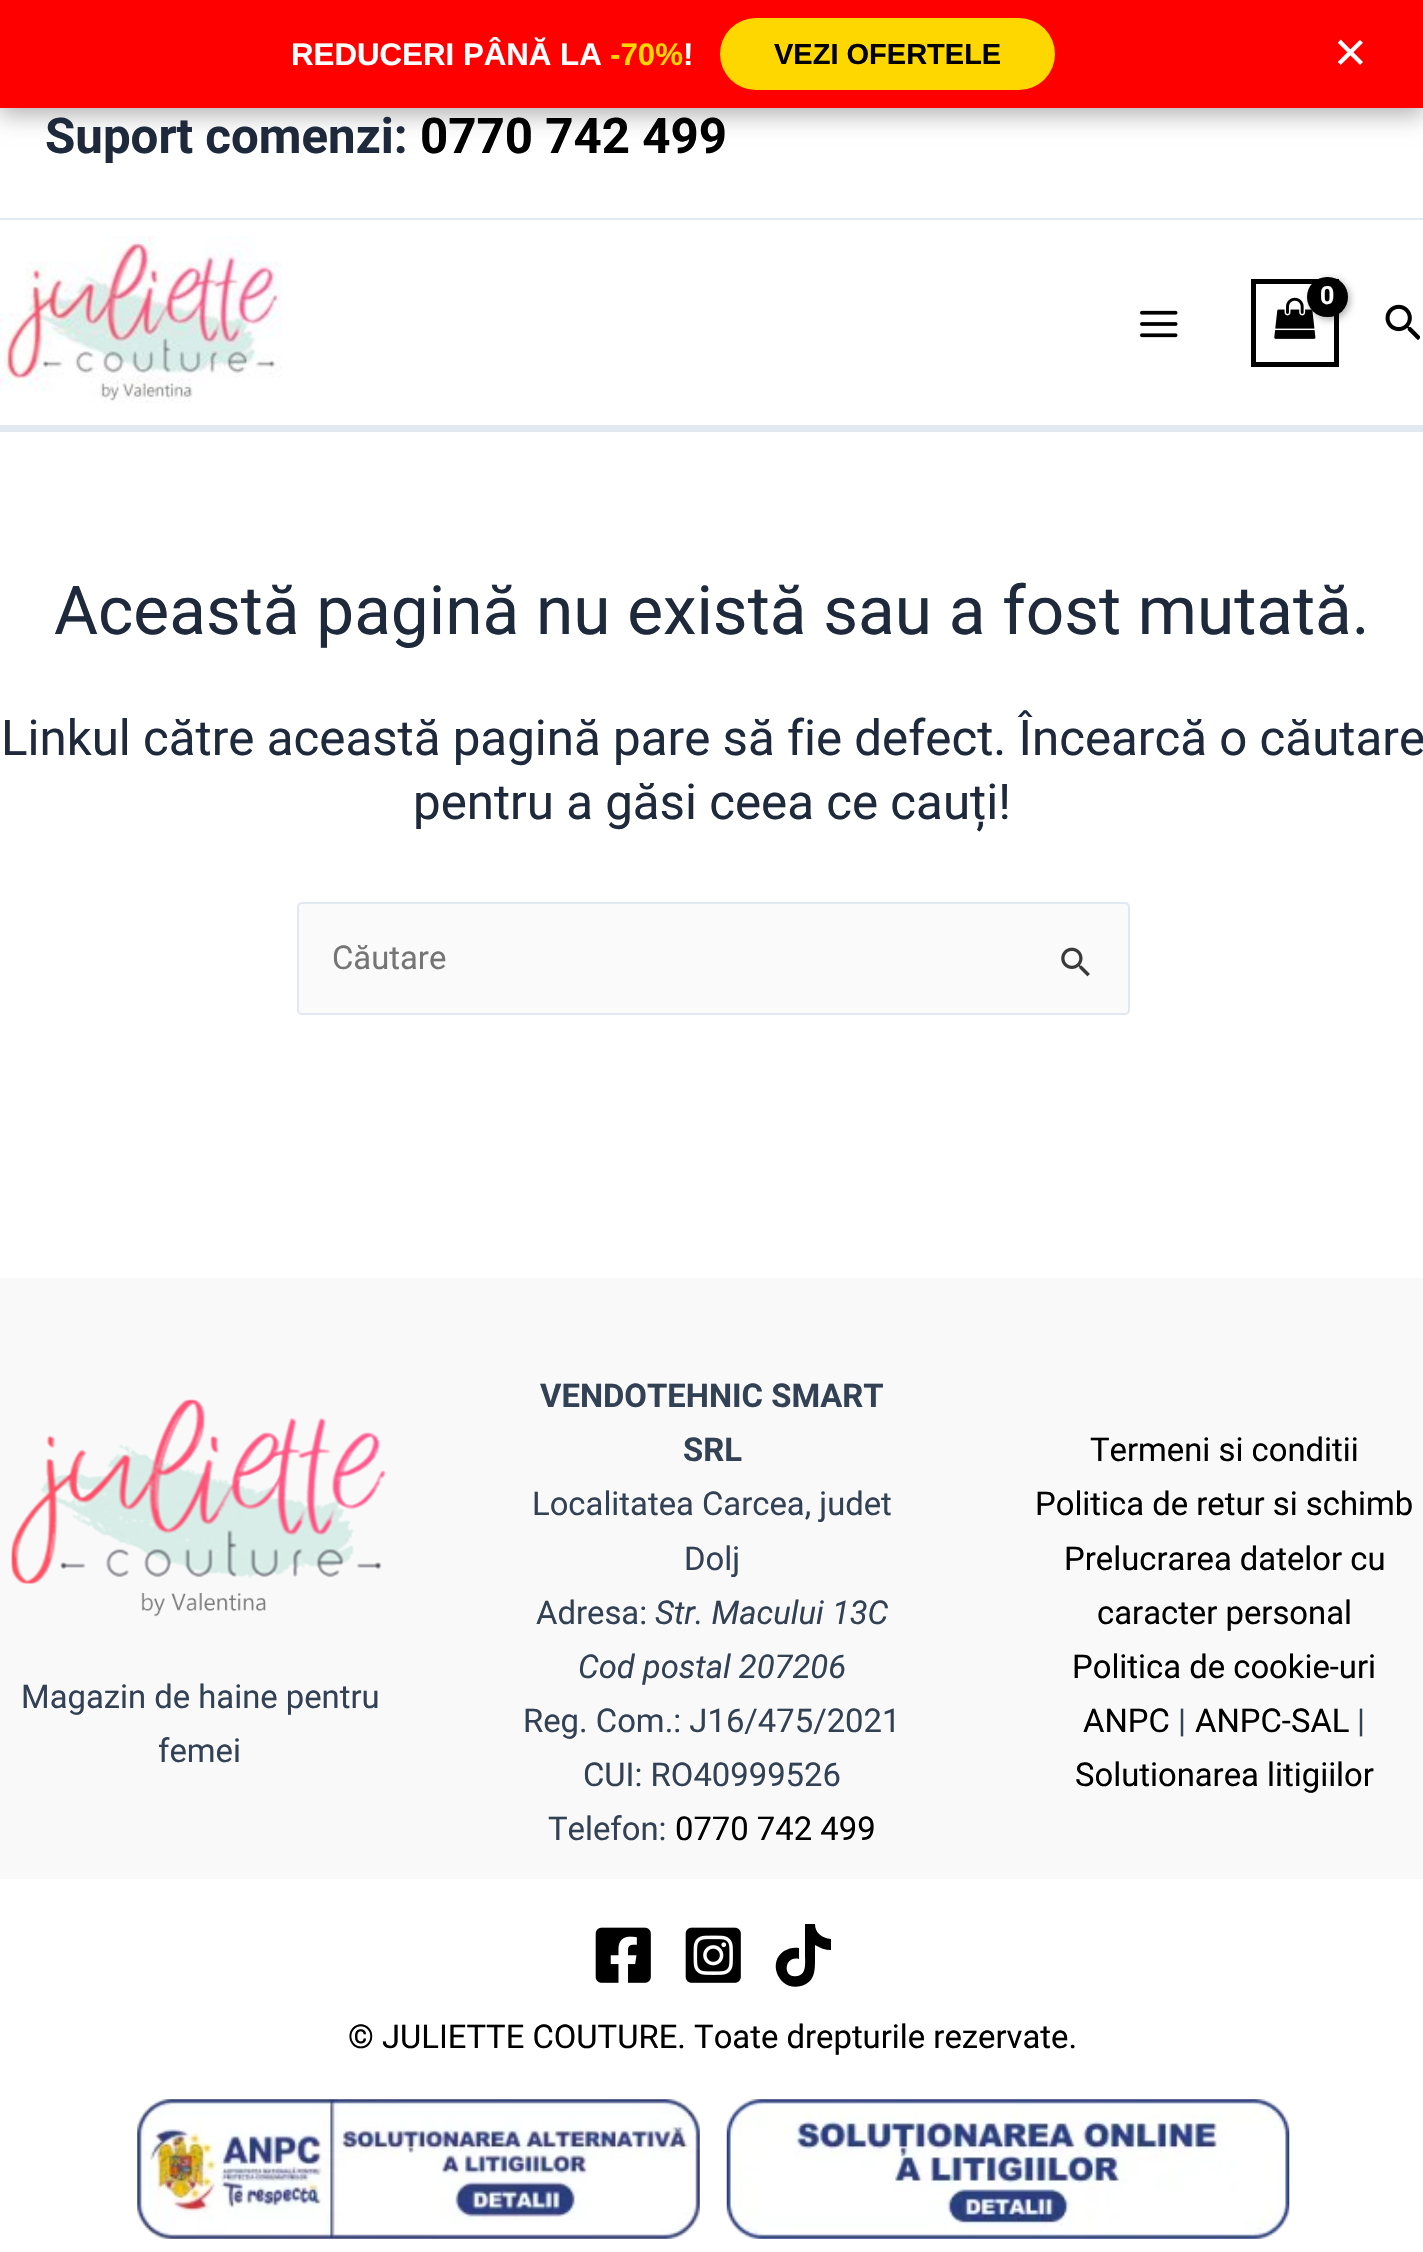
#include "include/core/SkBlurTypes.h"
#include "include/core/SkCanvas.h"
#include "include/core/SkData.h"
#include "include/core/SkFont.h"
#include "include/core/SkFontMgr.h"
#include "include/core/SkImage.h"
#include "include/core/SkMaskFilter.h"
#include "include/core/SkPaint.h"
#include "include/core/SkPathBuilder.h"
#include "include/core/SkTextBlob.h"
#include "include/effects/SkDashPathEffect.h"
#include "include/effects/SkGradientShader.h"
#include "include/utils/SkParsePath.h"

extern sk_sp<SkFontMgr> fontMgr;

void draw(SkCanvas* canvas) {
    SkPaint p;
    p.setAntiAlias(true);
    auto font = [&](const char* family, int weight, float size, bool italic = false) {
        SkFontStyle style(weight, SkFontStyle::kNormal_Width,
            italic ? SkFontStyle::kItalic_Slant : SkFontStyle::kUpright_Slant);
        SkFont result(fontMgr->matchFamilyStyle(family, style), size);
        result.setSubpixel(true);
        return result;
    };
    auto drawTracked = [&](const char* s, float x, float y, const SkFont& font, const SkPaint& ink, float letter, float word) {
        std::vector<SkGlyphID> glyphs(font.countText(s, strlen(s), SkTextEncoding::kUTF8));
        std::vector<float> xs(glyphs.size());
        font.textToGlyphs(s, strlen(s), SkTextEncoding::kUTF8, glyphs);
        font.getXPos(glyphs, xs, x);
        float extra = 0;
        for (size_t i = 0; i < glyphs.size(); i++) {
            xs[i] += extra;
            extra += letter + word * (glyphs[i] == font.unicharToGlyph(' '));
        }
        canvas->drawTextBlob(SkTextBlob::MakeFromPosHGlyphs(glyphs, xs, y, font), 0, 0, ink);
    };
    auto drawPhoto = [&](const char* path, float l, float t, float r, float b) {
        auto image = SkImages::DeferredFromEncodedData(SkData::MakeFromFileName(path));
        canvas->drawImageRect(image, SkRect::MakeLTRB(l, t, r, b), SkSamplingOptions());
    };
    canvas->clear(0xFFFFFFFF);
    p.setColor(0x4D000000);
    p.setMaskFilter(SkMaskFilter::MakeBlur(kNormal_SkBlurStyle, 11));
    canvas->drawRect(SkRect::MakeLTRB(0, 7, 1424, 115), p);
    p.setMaskFilter(nullptr);
    p.setColor(0xFFFF0000);
    canvas->drawRect(SkRect::MakeLTRB(0, 0, 1423, 108), p);
    auto font1 = font("Liberation Sans", 700, 31.25f);
    p.setColor(0xFFFFFFFF);
    canvas->drawString("REDUCERI PÂNĂ LA", 291, 65, font1, p);
    p.setColor(0xFFFFD700);
    canvas->drawString("-70%", 610, 65, font1, p);
    p.setColor(0xFFFFFFFF);
    canvas->drawString("!", 683, 65, font1, p);
    p.setColor(0xFFFFD700);
    canvas->drawRoundRect(SkRect::MakeLTRB(720, 18, 1055, 90), 36, 36, p);
    auto font2 = font("Liberation Sans", 700, 29);
    p.setColor(0xFF000000);
    canvas->drawString("VEZI OFERTELE", 774, 64, font2, p);
    auto font3 = font("Liberation Sans", 400, 56);
    p.setColor(0xFFFFFFFF);
    canvas->drawString("×", 1334, 71, font3, p);
    p.setColor(0xFFE2E8F0);
    canvas->drawRect(SkRect::MakeLTRB(0, 218, 1423, 220), p);
    auto font4 = font("Roboto", 700, 49.25f);
    p.setColor(0xFF1E293B);
    canvas->drawString("Suport comenzi:", 45, 153, font4, p);
    p.setColor(0xFF000000);
    canvas->drawString("0770 742 499", 420, 153, font4, p);
    p.setColor(0xFFE2E8F0);
    canvas->drawRect(SkRect::MakeLTRB(0, 425, 1423, 432), p);
    drawPhoto("media/1.png", 0, 236, 282, 403);
    p.setStyle(SkPaint::kStroke_Style);
    p.setStrokeWidth(5);
    p.setColor(0xFF000000);
    canvas->drawRect(SkRect::MakeLTRB(1253.5f, 281.5f, 1336.5f, 364.5f), p);
    drawPhoto("media/2.png", 1274, 297, 1316, 339);
    p.setStyle(SkPaint::kFill_Style);
    p.setColor(0x4D000000);
    p.setMaskFilter(SkMaskFilter::MakeBlur(kNormal_SkBlurStyle, 3.5f));
    canvas->drawRoundRect(SkRect::MakeLTRB(1310, 279, 1350, 320), 20, 20, p);
    p.setMaskFilter(nullptr);
    p.setColor(0xFF000000);
    canvas->drawRoundRect(SkRect::MakeLTRB(1307, 277, 1348, 317), 20, 20, p);
    auto font5 = font("Roboto", 700, 25);
    p.setColor(0xFFFFFFFF);
    drawTracked("0", 1320, 304, font5, p, -1, 0);
    drawPhoto("media/3.png", 1140, 310, 1178, 338);
    drawPhoto("media/4.png", 1385, 304, 1420, 341);
    auto font6 = font("Roboto", 400, 67.5f);
    p.setColor(0xFF1E293B);
    canvas->drawString("Această pagină nu există sau a fost mutată.", 54, 634, font6, p);
    auto font7 = font("Roboto", 400, 49.25f);
    canvas->drawString("Linkul către această pagină pare să fie defect. Încearcă o căutare", 1, 755, font7, p);
    canvas->drawString("pentru a găsi ceea ce cauți!", 413, 819, font7, p);
    p.setColor(0xFFFAFAFA);
    canvas->drawRoundRect(SkRect::MakeLTRB(298, 903, 1129, 1014), 4, 4, p);
    p.setStyle(SkPaint::kStroke_Style);
    p.setStrokeWidth(2);
    p.setColor(0xFFE2E8F0);
    canvas->drawRoundRect(SkRect::MakeLTRB(298, 903, 1129, 1014), 4, 4, p);
    auto font8 = font("Roboto", 400, 32.8f);
    p.setStyle(SkPaint::kFill_Style);
    p.setColor(0xFF757575);
    canvas->drawString("Căutare", 332, 969, font8, p);
    drawPhoto("media/5.png", 1061, 947, 1090, 977);
    p.setColor(0xFFF9F9F9);
    canvas->drawRect(SkRect::MakeLTRB(0, 1278, 1423, 1879), p);
    drawPhoto("media/6.png", 11, 1399, 386, 1617);
    p.setColor(0xFF334155);
    canvas->drawString("Magazin de haine pentru", 21, 1708, font8, p);
    canvas->drawString("femei", 158, 1762, font8, p);
    auto font9 = font("Roboto", 700, 32.8f);
    canvas->drawString("VENDOTEHNIC SMART", 540, 1407, font9, p);
    canvas->drawString("SRL", 683, 1461, font9, p);
    {
        const struct { const char* s; float x, y; } items[] = {
            {"Localitatea Carcea, judet", 532, 1515},
            {"Dolj", 684, 1570},
            {"Adresa:", 536, 1624},
        };
        for (auto [s, x, y] : items) {
            canvas->drawString(s, x, y, font8, p);
        }
    }
    auto font10 = font("Roboto", 400, 32.8f, true);
    canvas->drawString("Str. Macului 13C", 655, 1624, font10, p);
    canvas->drawString("Cod postal 207206", 578, 1678, font10, p);
    {
        const struct { const char* s; float x, y; } items[] = {
            {"Reg. Com.: J16/475/2021", 523, 1732},
            {"CUI: RO40999526", 583, 1786},
            {"Telefon:", 548, 1840},
        };
        for (auto [s, x, y] : items) {
            canvas->drawString(s, x, y, font8, p);
        }
    }
    p.setColor(0xFF000000);
    {
        const struct { const char* s; float x, y; } items[] = {
            {"0770 742 499", 675, 1840},
            {"Termeni si conditii", 1090, 1461},
            {"Politica de retur si schimb", 1035, 1515},
            {"Prelucrarea datelor cu", 1064, 1570},
            {"caracter personal", 1097, 1624},
            {"Politica de cookie-uri", 1072, 1678},
            {"ANPC", 1083, 1732},
        };
        for (auto [s, x, y] : items) {
            canvas->drawString(s, x, y, font8, p);
        }
    }
    p.setColor(0xFF334155);
    canvas->drawString("|", 1178, 1732, font8, p);
    p.setColor(0xFF000000);
    canvas->drawString("ANPC-SAL", 1195, 1732, font8, p);
    p.setColor(0xFF334155);
    canvas->drawString("|", 1357, 1732, font8, p);
    p.setColor(0xFF000000);
    canvas->drawString("Solutionarea litigiilor", 1075, 1786, font8, p);
    drawPhoto("media/7.png", 595, 1927, 651, 1983);
    drawPhoto("media/8.png", 685, 1927, 741, 1983);
    canvas->drawPath(SkPathBuilder().moveTo(805, 1924).lineTo(815, 1924).cubicTo(815, 1933, 822, 1938, 831, 1939).lineTo(831, 1950).cubicTo(825, 1950, 820, 1948, 815, 1945).lineTo(815, 1959).cubicTo(815, 1971, 815, 1982, 801, 1986).cubicTo(780, 1992, 766, 1963, 784, 1951).cubicTo(789, 1948, 794, 1947, 799, 1948).lineTo(799, 1959).cubicTo(784, 1955, 782, 1979, 797, 1976).cubicTo(807, 1975, 805, 1962, 805, 1955).close().detach(), p);
    canvas->drawString("© JULIETTE COUTURE. Toate drepturile rezervate.", 348, 2048, font8, p);
    drawPhoto("media/9.png", 137, 2099, 700, 2239);
    drawPhoto("media/10.png", 726, 2099, 1290, 2239);
}
